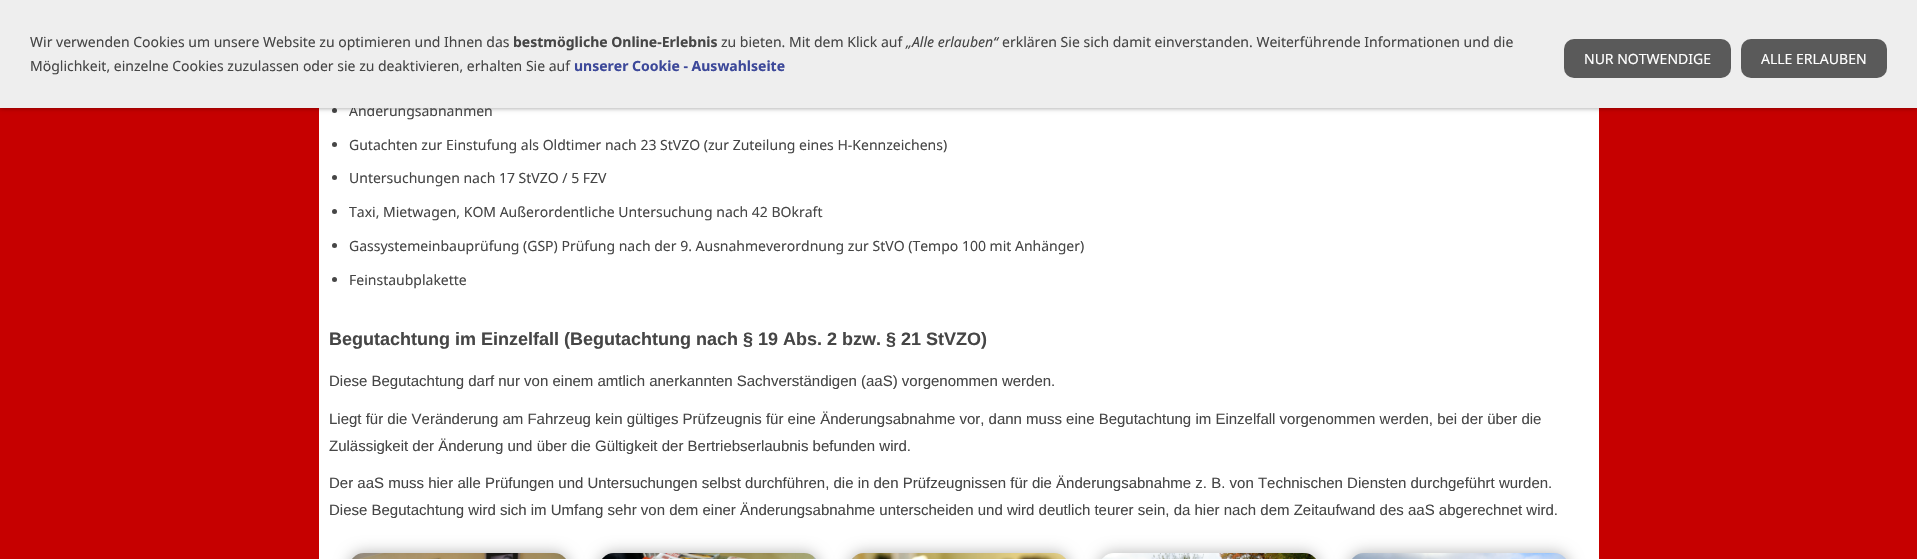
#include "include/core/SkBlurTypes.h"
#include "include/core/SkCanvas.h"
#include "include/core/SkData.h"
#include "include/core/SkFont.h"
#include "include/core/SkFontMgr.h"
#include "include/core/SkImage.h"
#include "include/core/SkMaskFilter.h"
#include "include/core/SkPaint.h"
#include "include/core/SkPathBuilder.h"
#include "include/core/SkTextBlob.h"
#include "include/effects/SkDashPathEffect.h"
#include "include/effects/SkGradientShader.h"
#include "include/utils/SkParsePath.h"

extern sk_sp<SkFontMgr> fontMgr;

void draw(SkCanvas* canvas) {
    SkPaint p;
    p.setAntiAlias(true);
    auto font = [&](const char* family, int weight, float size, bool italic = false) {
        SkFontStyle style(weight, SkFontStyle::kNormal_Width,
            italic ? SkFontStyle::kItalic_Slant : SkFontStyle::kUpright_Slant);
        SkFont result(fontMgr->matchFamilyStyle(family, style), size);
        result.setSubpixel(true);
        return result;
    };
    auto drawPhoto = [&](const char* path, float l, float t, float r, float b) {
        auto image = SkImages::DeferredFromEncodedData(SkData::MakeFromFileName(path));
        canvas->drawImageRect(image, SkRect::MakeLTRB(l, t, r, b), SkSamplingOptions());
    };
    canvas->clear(0xFFC60000);
    p.setColor(0xFFFFFFFF);
    canvas->drawRect(SkRect::MakeLTRB(319, 108, 1599, 559), p);
    p.setColor(0xFF464646);
    canvas->drawCircle(334.5f, 110.5f, 2.5f, p);
    p.setColor(0x66000000);
    p.setMaskFilter(SkMaskFilter::MakeBlur(kNormal_SkBlurStyle, 2.5f));
    canvas->drawRect(SkRect::MakeLTRB(0, 0, 1917, 108), p);
    p.setMaskFilter(nullptr);
    auto font1 = font("Noto Sans", 400, 14);
    p.setColor(0xFF464646);
    canvas->drawString("Änderungsabnahmen", 349, 116, font1, p);
    p.setColor(0xFFEEEEEE);
    canvas->drawRect(SkRect::MakeLTRB(0, 0, 1917, 108), p);
    p.setColor(0xFF464646);
    canvas->drawString("Wir verwenden Cookies um unsere Website zu optimieren und Ihnen das", 30, 47, font1, p);
    auto font2 = font("Noto Sans", 700, 14);
    canvas->drawString("bestmögliche Online-Erlebnis", 513, 47, font2, p);
    canvas->drawString("zu bieten. Mit dem Klick auf", 721, 47, font1, p);
    auto font3 = font("Noto Sans", 400, 14, true);
    canvas->drawString("„Alle erlauben“", 906, 47, font3, p);
    canvas->drawString("erklären Sie sich damit einverstanden. Weiterführende Informationen und die", 1002, 47, font1, p);
    canvas->drawString("Möglichkeit, einzelne Cookies zuzulassen oder sie zu deaktivieren, erhalten Sie auf", 30, 71, font1, p);
    p.setColor(0xFF3C4899);
    canvas->drawString("unserer Cookie - Auswahlseite", 574, 71, font2, p);
    p.setColor(0xFF5A5A5A);
    canvas->drawRoundRect(SkRect::MakeLTRB(1564, 39, 1731, 78), 10, 10, p);
    p.setColor(0xFFFFFFFF);
    canvas->drawString("NUR NOTWENDIGE", 1584, 64, font1, p);
    p.setColor(0xFF5A5A5A);
    canvas->drawRoundRect(SkRect::MakeLTRB(1741, 39, 1887, 78), 10, 10, p);
    p.setColor(0xFFFFFFFF);
    canvas->drawString("ALLE ERLAUBEN", 1761, 64, font1, p);
    p.setColor(0xFF464646);
    canvas->drawCircle(334.5f, 144.5f, 2.5f, p);
    canvas->drawString("Gutachten zur Einstufung als Oldtimer nach 23 StVZO (zur Zuteilung eines H-Kennzeichens)", 349, 150, font1, p);
    canvas->drawCircle(334.5f, 177.5f, 2.5f, p);
    canvas->drawString("Untersuchungen nach 17 StVZO / 5 FZV", 349, 183, font1, p);
    canvas->drawCircle(334.5f, 211.5f, 2.5f, p);
    canvas->drawString("Taxi, Mietwagen, KOM Außerordentliche Untersuchung nach 42 BOkraft", 349, 217, font1, p);
    canvas->drawCircle(334.5f, 245.5f, 2.5f, p);
    canvas->drawString("Gassystemeinbauprüfung (GSP) Prüfung nach der 9. Ausnahmeverordnung zur StVO (Tempo 100 mit Anhänger)", 349, 251, font1, p);
    canvas->drawCircle(334.5f, 279.5f, 2.5f, p);
    canvas->drawString("Feinstaubplakette", 349, 285, font1, p);
    auto font4 = font("Liberation Sans", 700, 18);
    canvas->drawString("Begutachtung im Einzelfall (Begutachtung nach § 19 Abs. 2 bzw. § 21 StVZO)", 329, 345, font4, p);
    auto font5 = font("Liberation Sans", 400, 15);
    {
        const struct { const char* s; float x, y; } items[] = {
            {"Diese Begutachtung darf nur von einem amtlich anerkannten Sachverständigen (aaS) vorgenommen werden.", 329, 386},
            {"Liegt für die Veränderung am Fahrzeug kein gültiges Prüfzeugnis für eine Änderungsabnahme vor, dann muss eine Begutachtung im Einzelfall vorgenommen werden, bei der über die", 329, 424},
            {"Zulässigkeit der Änderung und über die Gültigkeit der Bertriebserlaubnis befunden wird.", 329, 451},
            {"Der aaS muss hier alle Prüfungen und Untersuchungen selbst durchführen, die in den Prüfzeugnissen für die Änderungsabnahme z. B. von Technischen Diensten durchgeführt wurden.", 329, 488},
            {"Diese Begutachtung wird sich im Umfang sehr von dem einer Änderungsabnahme unterscheiden und wird deutlich teurer sein, da hier nach dem Zeitaufwand des aaS abgerechnet wird.", 329, 515},
        };
        for (auto [s, x, y] : items) {
            canvas->drawString(s, x, y, font5, p);
        }
    }
    p.setColor(0x4D000000);
    p.setMaskFilter(SkMaskFilter::MakeBlur(kNormal_SkBlurStyle, 7.5f));
    canvas->drawRoundRect(SkRect::MakeLTRB(349, 553, 569, 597), 15, 15, p);
    p.setMaskFilter(nullptr);
    drawPhoto("media/1.png", 352, 553, 566, 559);
    p.setMaskFilter(SkMaskFilter::MakeBlur(kNormal_SkBlurStyle, 7.5f));
    canvas->drawRoundRect(SkRect::MakeLTRB(599, 553, 819, 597), 15, 15, p);
    p.setMaskFilter(nullptr);
    drawPhoto("media/2.png", 602, 553, 816, 559);
    p.setMaskFilter(SkMaskFilter::MakeBlur(kNormal_SkBlurStyle, 7.5f));
    canvas->drawRoundRect(SkRect::MakeLTRB(849, 553, 1069, 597), 15, 15, p);
    p.setMaskFilter(nullptr);
    drawPhoto("media/3.png", 852, 553, 1066, 559);
    p.setMaskFilter(SkMaskFilter::MakeBlur(kNormal_SkBlurStyle, 7.5f));
    canvas->drawRoundRect(SkRect::MakeLTRB(1099, 553, 1319, 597), 15, 15, p);
    p.setMaskFilter(nullptr);
    drawPhoto("media/4.png", 1102, 553, 1316, 559);
    p.setMaskFilter(SkMaskFilter::MakeBlur(kNormal_SkBlurStyle, 7.5f));
    canvas->drawRoundRect(SkRect::MakeLTRB(1349, 553, 1569, 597), 15, 15, p);
    p.setMaskFilter(nullptr);
    drawPhoto("media/5.png", 1352, 553, 1566, 559);
}
